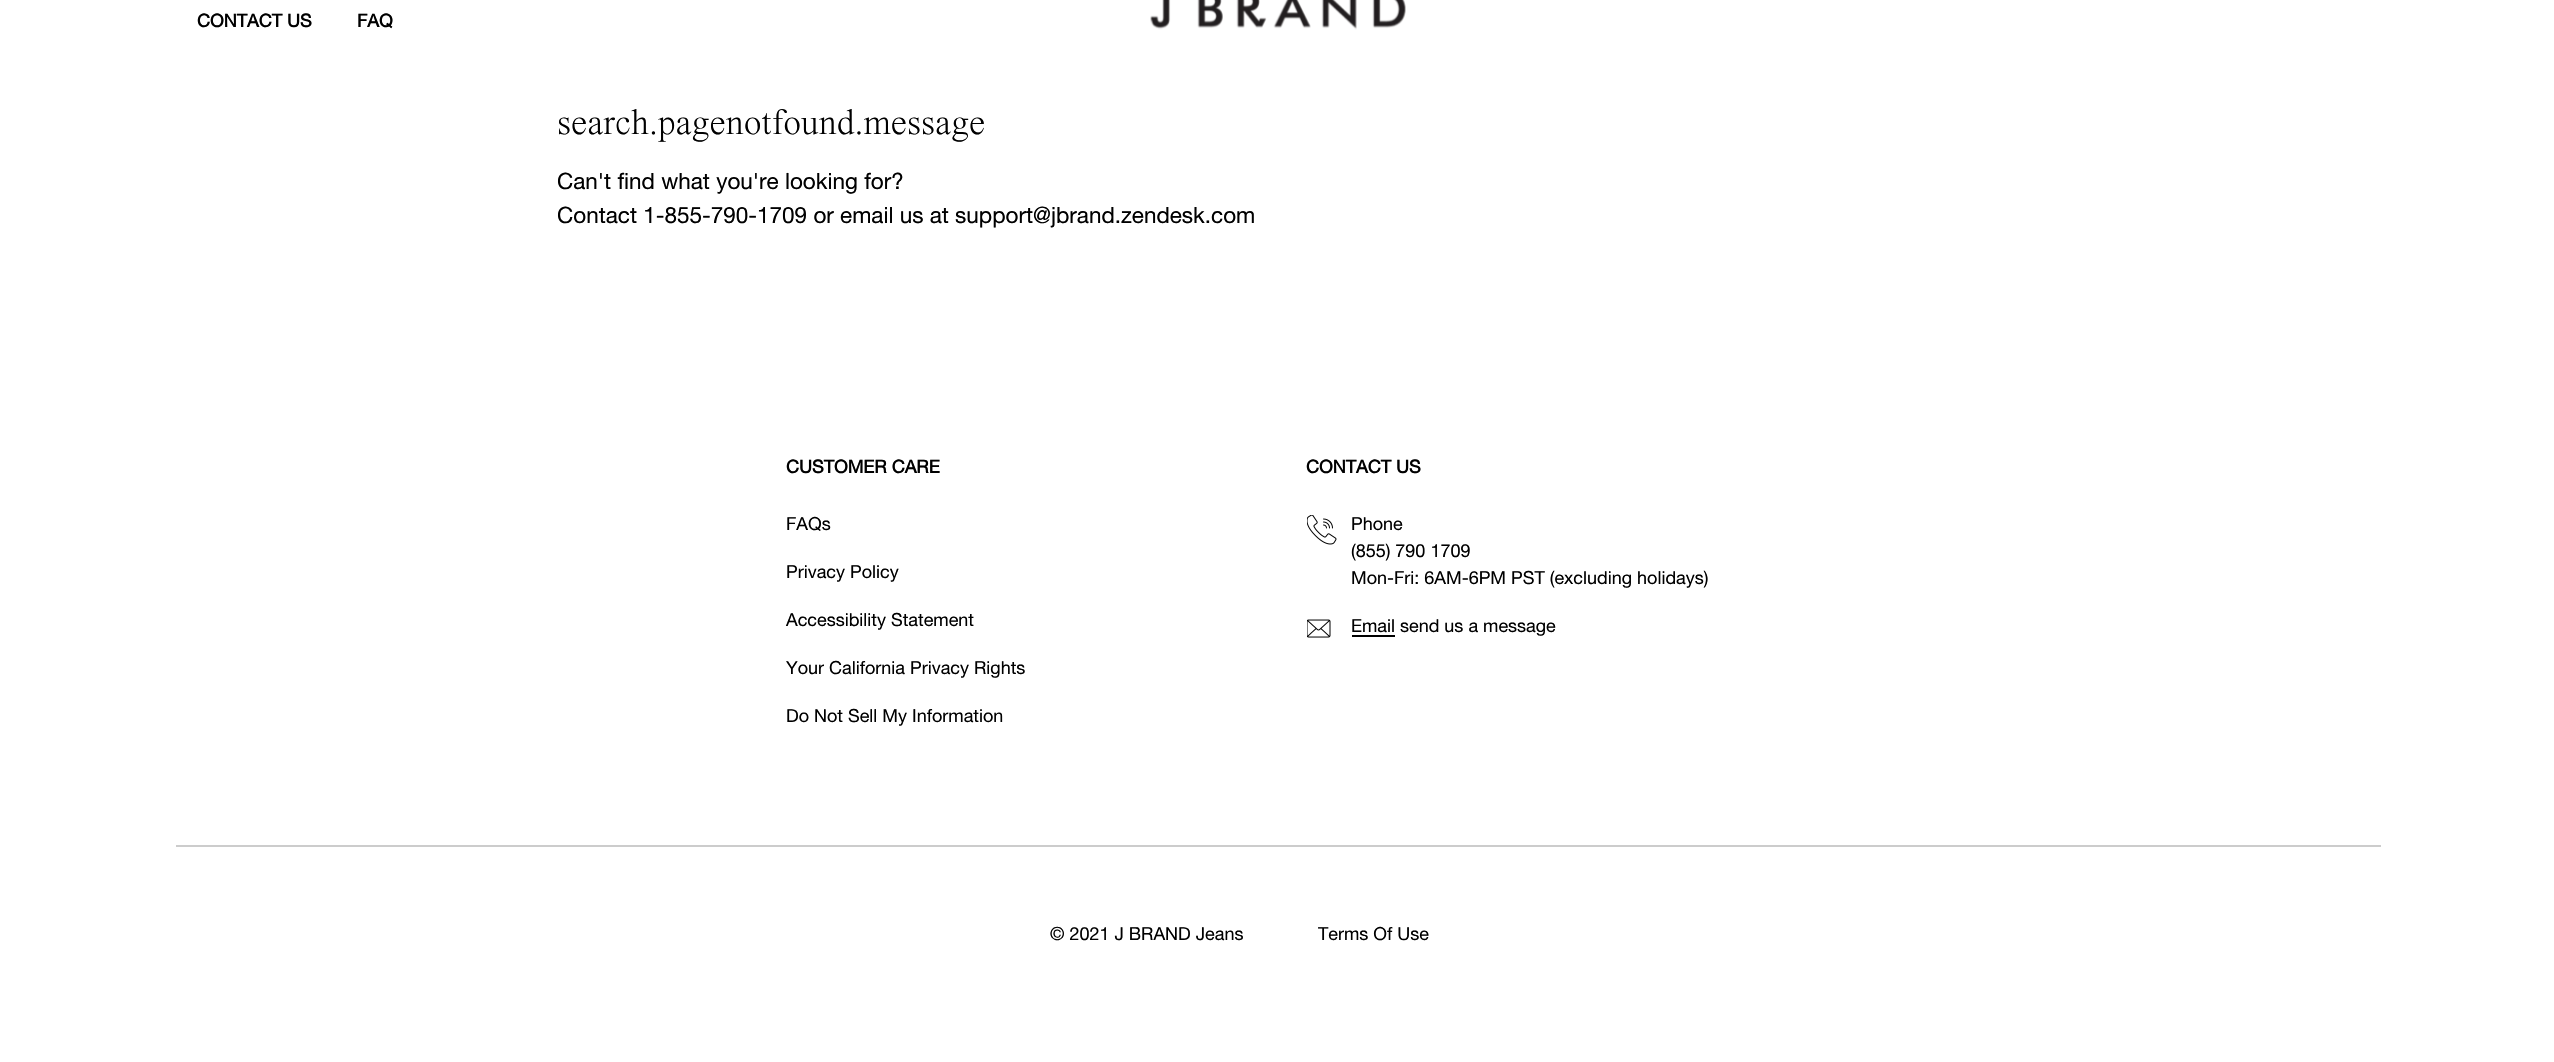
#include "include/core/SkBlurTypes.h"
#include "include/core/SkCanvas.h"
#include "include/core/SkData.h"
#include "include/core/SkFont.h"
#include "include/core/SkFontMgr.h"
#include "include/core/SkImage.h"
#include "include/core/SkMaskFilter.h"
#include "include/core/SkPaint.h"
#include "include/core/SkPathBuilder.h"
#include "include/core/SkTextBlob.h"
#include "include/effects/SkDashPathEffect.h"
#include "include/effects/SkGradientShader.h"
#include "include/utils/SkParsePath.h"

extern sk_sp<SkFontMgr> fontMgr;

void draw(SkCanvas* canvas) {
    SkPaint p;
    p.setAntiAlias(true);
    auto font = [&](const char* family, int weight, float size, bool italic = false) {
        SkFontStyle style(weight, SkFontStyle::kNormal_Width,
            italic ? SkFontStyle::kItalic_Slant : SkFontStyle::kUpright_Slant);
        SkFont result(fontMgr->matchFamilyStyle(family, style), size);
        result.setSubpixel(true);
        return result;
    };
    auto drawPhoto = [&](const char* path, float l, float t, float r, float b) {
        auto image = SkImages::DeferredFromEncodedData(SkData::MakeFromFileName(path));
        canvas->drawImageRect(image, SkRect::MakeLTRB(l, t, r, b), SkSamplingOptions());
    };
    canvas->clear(0xFFFFFFFF);
    auto font1 = font("Helvetica Neue", 700, 18);
    p.setColor(0xFF000000);
    canvas->drawString("CONTACT US", 197, 27, font1, p);
    canvas->drawString("FAQ", 357, 27, font1, p);
    drawPhoto("media/1.png", 1150, 0, 1406, 30);
    auto font2 = font("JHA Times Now", 300, 36);
    canvas->drawString("search.pagenotfound.message", 557, 134, font2, p);
    auto font3 = font("Helvetica Neue", 400, 22.5f);
    canvas->drawString("Can't find what you're looking for?", 557, 189, font3, p);
    canvas->drawString("Contact 1-855-790-1709 or email us at support@jbrand.zendesk.com", 557, 223, font3, p);
    canvas->drawString("CUSTOMER CARE", 786, 473, font1, p);
    auto font4 = font("Helvetica Neue", 400, 18);
    {
        const struct { const char* s; float x, y; } items[] = {
            {"FAQs", 786, 530},
            {"Privacy Policy", 786, 578},
            {"Accessibility Statement", 786, 626},
            {"Your California Privacy Rights", 786, 674},
            {"Do Not Sell My Information", 786, 722},
        };
        for (auto [s, x, y] : items) {
            canvas->drawString(s, x, y, font4, p);
        }
    }
    canvas->drawString("CONTACT US", 1306, 473, font1, p);
    drawPhoto("media/2.png", 1307, 515, 1337, 545);
    {
        const struct { const char* s; float x, y; } items[] = {
            {"Phone", 1351, 530},
            {"(855) 790 1709", 1351, 557},
            {"Mon-Fri: 6AM-6PM PST (excluding holidays)", 1351, 584},
        };
        for (auto [s, x, y] : items) {
            canvas->drawString(s, x, y, font4, p);
        }
    }
    drawPhoto("media/3.png", 1307, 619, 1331, 638);
    canvas->drawRect(SkRect::MakeLTRB(1352, 635, 1395, 637), p);
    canvas->drawString("Email send us a message", 1351, 632, font4, p);
    p.setColor(0xFFCCCCCC);
    canvas->drawRect(SkRect::MakeLTRB(176, 845, 2381, 847), p);
    p.setColor(0xFF000000);
    canvas->drawString("© 2021 J BRAND Jeans", 1050, 940, font4, p);
    canvas->drawString("Terms Of Use", 1318, 940, font4, p);
}
